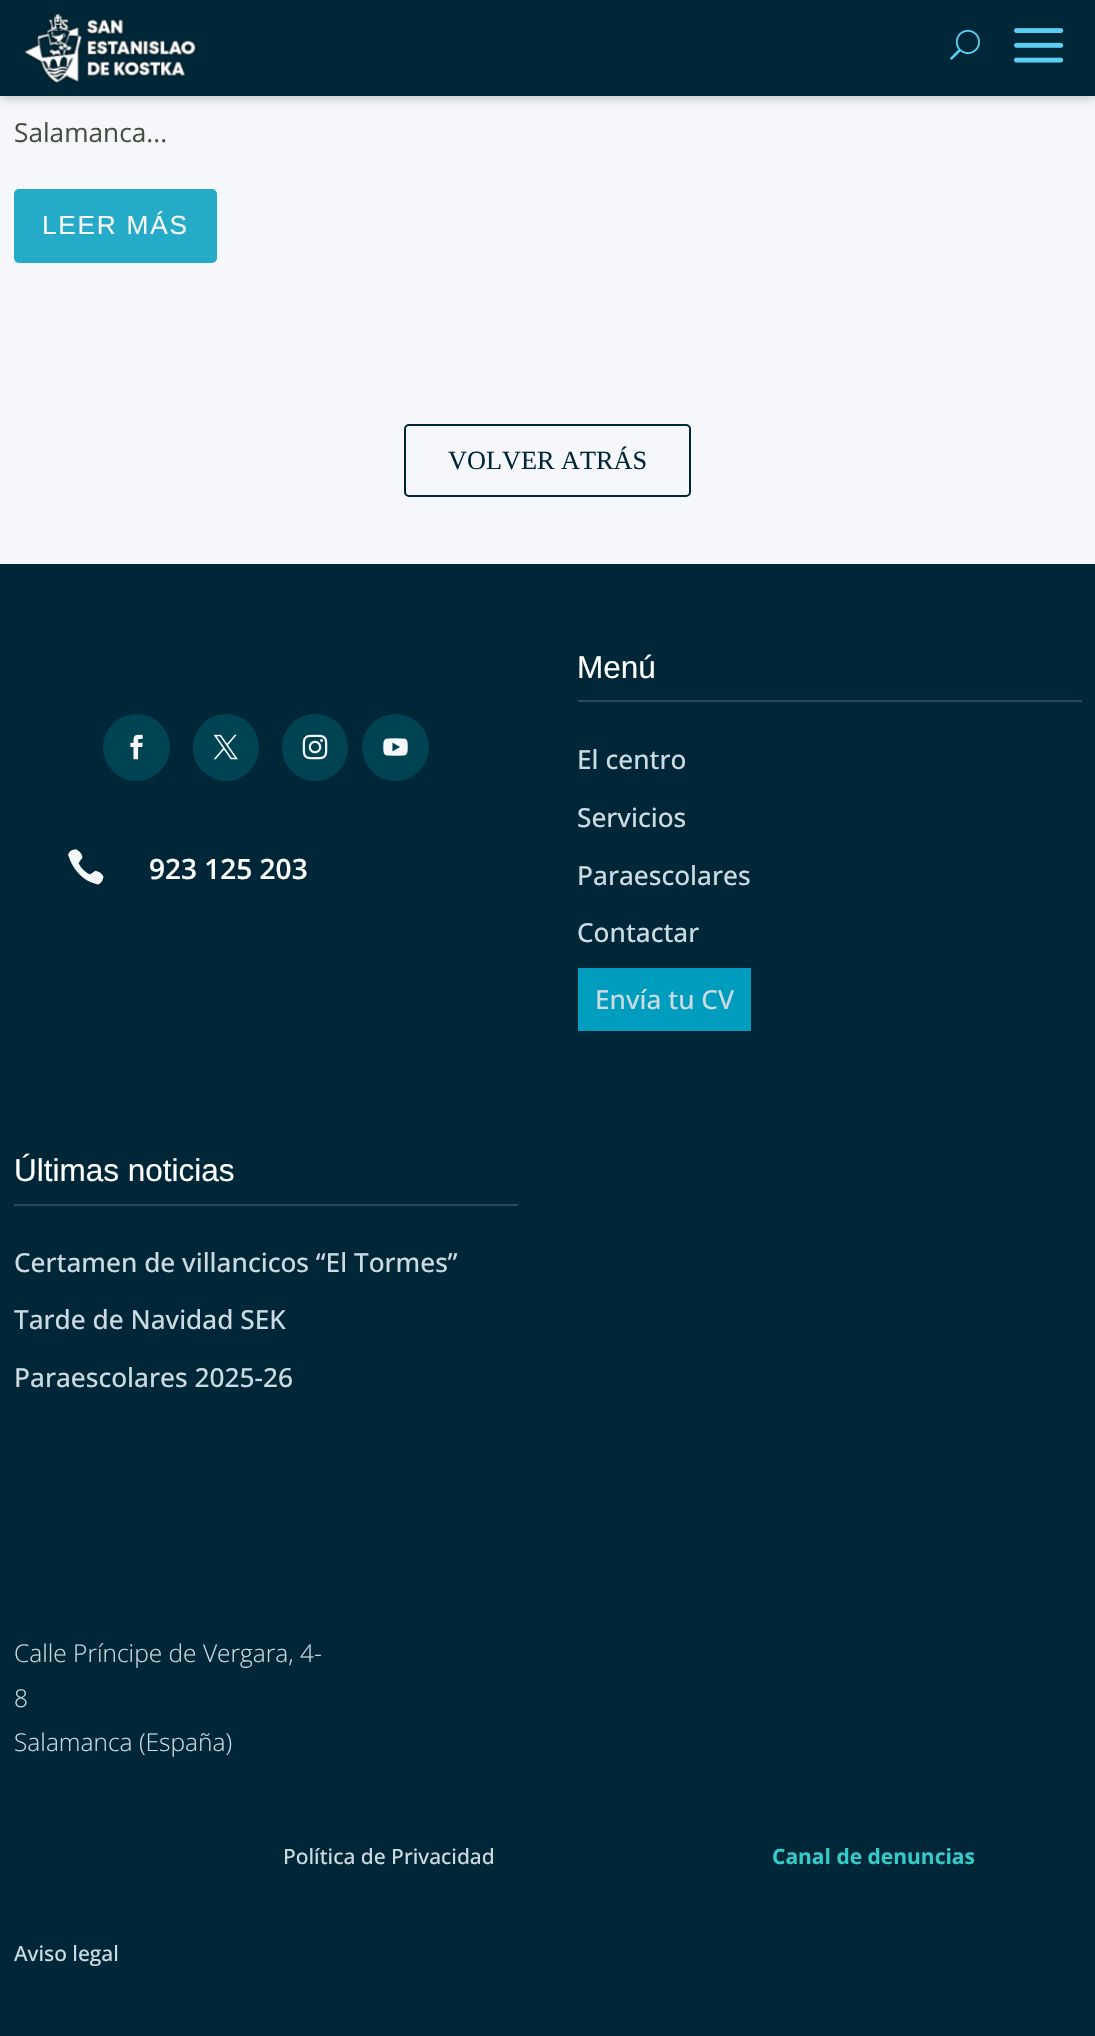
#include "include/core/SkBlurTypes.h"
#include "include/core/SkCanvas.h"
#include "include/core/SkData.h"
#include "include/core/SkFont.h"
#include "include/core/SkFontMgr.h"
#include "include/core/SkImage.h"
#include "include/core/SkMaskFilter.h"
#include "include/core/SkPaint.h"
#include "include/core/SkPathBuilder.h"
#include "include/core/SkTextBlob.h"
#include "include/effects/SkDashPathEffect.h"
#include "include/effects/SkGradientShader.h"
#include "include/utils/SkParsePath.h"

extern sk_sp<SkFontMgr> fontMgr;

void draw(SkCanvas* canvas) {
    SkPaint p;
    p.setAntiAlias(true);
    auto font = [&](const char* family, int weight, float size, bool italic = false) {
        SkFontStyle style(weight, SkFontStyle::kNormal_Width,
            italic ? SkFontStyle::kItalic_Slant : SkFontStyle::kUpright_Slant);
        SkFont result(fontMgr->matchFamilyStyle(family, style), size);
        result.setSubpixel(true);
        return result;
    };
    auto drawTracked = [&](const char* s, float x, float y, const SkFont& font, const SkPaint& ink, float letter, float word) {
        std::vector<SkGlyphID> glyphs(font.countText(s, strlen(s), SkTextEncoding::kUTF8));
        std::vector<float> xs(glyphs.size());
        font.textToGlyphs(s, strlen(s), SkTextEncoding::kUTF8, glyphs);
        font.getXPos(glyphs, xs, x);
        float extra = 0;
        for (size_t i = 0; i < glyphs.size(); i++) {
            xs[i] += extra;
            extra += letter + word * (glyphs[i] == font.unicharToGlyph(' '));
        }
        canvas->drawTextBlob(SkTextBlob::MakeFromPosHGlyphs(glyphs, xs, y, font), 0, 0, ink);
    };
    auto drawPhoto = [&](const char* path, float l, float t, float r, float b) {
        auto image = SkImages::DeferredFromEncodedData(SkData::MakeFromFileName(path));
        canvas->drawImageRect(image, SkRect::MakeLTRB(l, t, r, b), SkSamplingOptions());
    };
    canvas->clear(0xFFF5F7FA);
    p.setColor(0x4D000000);
    p.setMaskFilter(SkMaskFilter::MakeBlur(kNormal_SkBlurStyle, 6));
    canvas->drawRect(SkRect::MakeLTRB(0, 0, 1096, 96), p);
    p.setMaskFilter(nullptr);
    p.setColor(0xFF002737);
    canvas->drawRect(SkRect::MakeLTRB(0, 0, 1095, 96), p);
    drawPhoto("media/1.png", 24, 13, 197, 84);
    drawPhoto("media/2.png", 950, 29, 980, 60);
    drawPhoto("media/3.png", 1014, 28, 1064, 63);
    auto font1 = font("Open Sans", 400, 26.25f);
    p.setColor(0xFF484E41);
    canvas->drawString("Salamanca...", 14, 142, font1, p);
    p.setColor(0xFF25ABC7);
    canvas->drawRoundRect(SkRect::MakeLTRB(14, 189, 217, 263), 5, 5, p);
    auto font2 = font("Liberation Sans", 400, 26.25f);
    p.setColor(0xFFF5F7FA);
    drawTracked("LEER MÁS", 42, 234, font2, p, 1.75f, 0);
    p.setStyle(SkPaint::kStroke_Style);
    p.setStrokeWidth(2);
    p.setColor(0xFF002737);
    canvas->drawRoundRect(SkRect::MakeLTRB(405, 425, 690, 496), 4, 4, p);
    auto font3 = font("Liberation Serif", 400, 26.25f);
    p.setStyle(SkPaint::kFill_Style);
    canvas->drawString("VOLVER ATRÁS", 448, 469, font3, p);
    canvas->drawRect(SkRect::MakeLTRB(0, 564, 1095, 2036), p);
    p.setColor(0xFF004352);
    canvas->drawCircle(136.5f, 747.5f, 33.5f, p);
    drawPhoto("media/4.png", 130, 734, 143, 760);
    canvas->drawRoundRect(SkRect::MakeLTRB(193, 714, 259, 781), 33, 33, p);
    drawPhoto("media/5.png", 213, 734, 238, 760);
    canvas->drawRoundRect(SkRect::MakeLTRB(282, 714, 348, 781), 33, 33, p);
    drawPhoto("media/6.png", 302, 734, 328, 760);
    canvas->drawCircle(395.5f, 747.5f, 33.5f, p);
    drawPhoto("media/7.png", 383, 738, 408, 756);
    drawPhoto("media/8.png", 68, 849, 104, 885);
    auto font4 = font("Open Sans", 600, 28);
    p.setColor(0xFFFFFFFF);
    canvas->drawString("923 125 203", 149, 879, font4, p);
    p.setColor(0xFF294B59);
    canvas->drawRect(SkRect::MakeLTRB(578, 700, 1082, 702), p);
    auto font5 = font("Liberation Sans", 400, 31.5f);
    p.setColor(0xFFFFFFFF);
    canvas->drawString("Menú", 577, 678, font5, p);
    auto font6 = font("Open Sans", 500, 26.25f);
    p.setColor(0xFFCCDAE1);
    {
        const struct { const char* s; float x, y; } items[] = {
            {"El centro", 577, 769},
            {"Servicios", 577, 827},
            {"Paraescolares", 577, 885},
            {"Contactar", 577, 942},
        };
        for (auto [s, x, y] : items) {
            canvas->drawString(s, x, y, font6, p);
        }
    }
    p.setColor(0xFF009DBE);
    canvas->drawRect(SkRect::MakeLTRB(578, 968, 751, 1031), p);
    p.setColor(0xFFCCDAE1);
    canvas->drawString("Envía tu CV", 595, 1009, font6, p);
    p.setColor(0xFF294B59);
    canvas->drawRect(SkRect::MakeLTRB(14, 1204, 518, 1206), p);
    p.setColor(0xFFFFFFFF);
    canvas->drawString("Últimas noticias", 14, 1181, font5, p);
    p.setColor(0xFFCCDAE1);
    {
        const struct { const char* s; float x, y; } items[] = {
            {"Certamen de villancicos “El Tormes”", 14, 1272},
            {"Tarde de Navidad SEK", 14, 1329},
            {"Paraescolares 2025-26", 14, 1387},
        };
        for (auto [s, x, y] : items) {
            canvas->drawString(s, x, y, font6, p);
        }
    }
    auto font7 = font("Open Sans", 300, 24.5f);
    {
        const struct { const char* s; float x, y; } items[] = {
            {"Calle Príncipe de Vergara, 4-", 14, 1662},
            {"8", 14, 1707},
            {"Salamanca (España)", 14, 1751},
        };
        for (auto [s, x, y] : items) {
            canvas->drawString(s, x, y, font7, p);
        }
    }
    auto font8 = font("Open Sans", 500, 21);
    canvas->drawString("Política de Privacidad", 283, 1864, font8, p);
    canvas->drawString("Aviso legal", 14, 1961, font8, p);
    auto font9 = font("Open Sans", 700, 21);
    p.setColor(0xFF33CCCC);
    canvas->drawString("Canal de denuncias", 772, 1864, font9, p);
}
